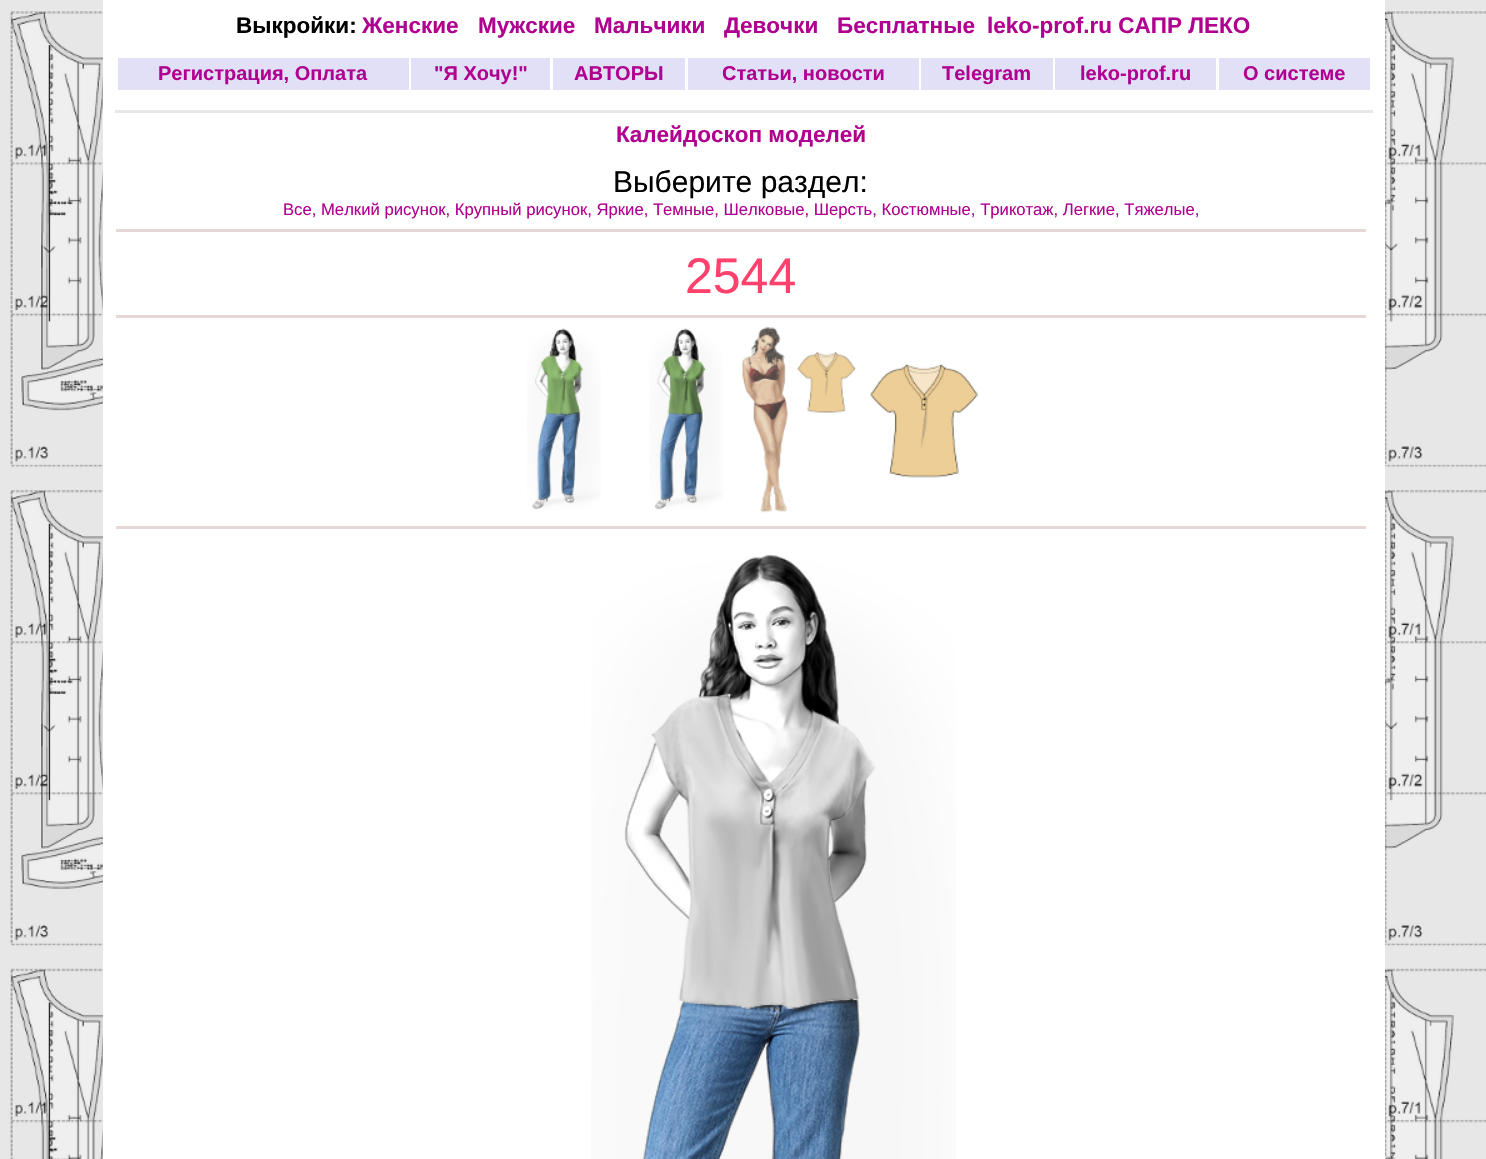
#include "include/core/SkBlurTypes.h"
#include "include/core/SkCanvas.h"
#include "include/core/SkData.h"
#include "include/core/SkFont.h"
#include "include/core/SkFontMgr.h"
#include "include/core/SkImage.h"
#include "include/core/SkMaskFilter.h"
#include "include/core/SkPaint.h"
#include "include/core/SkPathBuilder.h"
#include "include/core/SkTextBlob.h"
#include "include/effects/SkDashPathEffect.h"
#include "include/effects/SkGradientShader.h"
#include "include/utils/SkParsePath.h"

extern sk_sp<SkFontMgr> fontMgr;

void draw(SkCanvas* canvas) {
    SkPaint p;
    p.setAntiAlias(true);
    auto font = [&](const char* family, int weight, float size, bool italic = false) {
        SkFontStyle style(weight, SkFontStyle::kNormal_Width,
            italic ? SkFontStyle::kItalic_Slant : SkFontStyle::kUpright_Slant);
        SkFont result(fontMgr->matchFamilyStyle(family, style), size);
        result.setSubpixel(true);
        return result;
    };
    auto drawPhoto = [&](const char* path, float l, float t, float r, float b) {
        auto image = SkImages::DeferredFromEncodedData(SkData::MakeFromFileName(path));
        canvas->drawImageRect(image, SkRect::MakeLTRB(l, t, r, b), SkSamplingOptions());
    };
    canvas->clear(0xFFFFFFFF);
    drawPhoto("media/1.png", 0, 0, 1486, 1159);
    p.setColor(0xFFFFFFFF);
    canvas->drawRect(SkRect::MakeLTRB(103, 0, 1385, 1159), p);
    auto font1 = font("Liberation Sans", 700, 22.5f);
    p.setColor(0xFF000000);
    canvas->drawString("Выкройки:", 236, 33, font1, p);
    p.setColor(0xFFB00090);
    {
        const struct { const char* s; float x, y; } items[] = {
            {"Женские", 362, 33},
            {"Мужские", 478, 33},
            {"Мальчики", 594, 33},
            {"Девочки", 724, 33},
            {"Бесплатные", 837, 33},
            {"leko-prof.ru САПР ЛЕКО", 987, 33},
        };
        for (auto [s, x, y] : items) {
            canvas->drawString(s, x, y, font1, p);
        }
    }
    p.setColor(0xFFE1E0F7);
    canvas->drawRect(SkRect::MakeLTRB(118, 58, 409, 90), p);
    auto font2 = font("Liberation Sans", 700, 20);
    p.setColor(0xFFB00090);
    canvas->drawString("Регистрация, Оплата", 158, 80, font2, p);
    p.setColor(0xFFE1E0F7);
    canvas->drawRect(SkRect::MakeLTRB(411, 58, 550, 90), p);
    p.setColor(0xFFB00090);
    canvas->drawString("\"Я Хочу!\"", 434, 80, font2, p);
    p.setColor(0xFFE1E0F7);
    canvas->drawRect(SkRect::MakeLTRB(553, 58, 685, 90), p);
    p.setColor(0xFFB00090);
    canvas->drawString("АВТОРЫ", 574, 80, font2, p);
    p.setColor(0xFFE1E0F7);
    canvas->drawRect(SkRect::MakeLTRB(688, 58, 919, 90), p);
    p.setColor(0xFFB00090);
    canvas->drawString("Статьи, новости", 722, 80, font2, p);
    p.setColor(0xFFE1E0F7);
    canvas->drawRect(SkRect::MakeLTRB(921, 58, 1053, 90), p);
    p.setColor(0xFFB00090);
    canvas->drawString("Telegram", 942, 80, font2, p);
    p.setColor(0xFFE1E0F7);
    canvas->drawRect(SkRect::MakeLTRB(1055, 58, 1216, 90), p);
    p.setColor(0xFFB00090);
    canvas->drawString("leko-prof.ru", 1080, 80, font2, p);
    p.setColor(0xFFE1E0F7);
    canvas->drawRect(SkRect::MakeLTRB(1219, 58, 1370, 90), p);
    p.setColor(0xFFB00090);
    canvas->drawString("О системе", 1243, 80, font2, p);
    p.setColor(0xFFE7E7E7);
    canvas->drawRect(SkRect::MakeLTRB(115, 110, 1373, 113), p);
    p.setColor(0xFFB00090);
    canvas->drawString("Калейдоскоп моделей", 616, 142, font1, p);
    auto font3 = font("Liberation Sans", 400, 30);
    p.setColor(0xFF000000);
    canvas->drawString("Выберите раздел:", 613, 192, font3, p);
    auto font4 = font("Liberation Sans", 400, 16.67f);
    p.setColor(0xFFB00090);
    canvas->drawString("Все, Мелкий рисунок, Крупный рисунок, Яркие, Темные, Шелковые, Шерсть, Костюмные, Трикотаж, Легкие, Тяжелые,", 283, 215, font4, p);
    p.setColor(0xFFE7D7D7);
    canvas->drawRect(SkRect::MakeLTRB(116, 229, 1366, 232), p);
    auto font5 = font("Liberation Sans", 400, 50);
    p.setColor(0xFFFF416C);
    canvas->drawString("2544", 685, 293, font5, p);
    p.setColor(0xFFE7D7D7);
    canvas->drawRect(SkRect::MakeLTRB(116, 315, 1366, 318), p);
    drawPhoto("media/2.png", 527, 328, 601, 510);
    drawPhoto("media/3.png", 649, 328, 723, 510);
    drawPhoto("media/4.png", 742, 326, 856, 513);
    drawPhoto("media/5.png", 870, 351, 978, 478);
    canvas->drawRect(SkRect::MakeLTRB(116, 526, 1366, 529), p);
    drawPhoto("media/6.png", 591, 554, 956, 1159);
}
